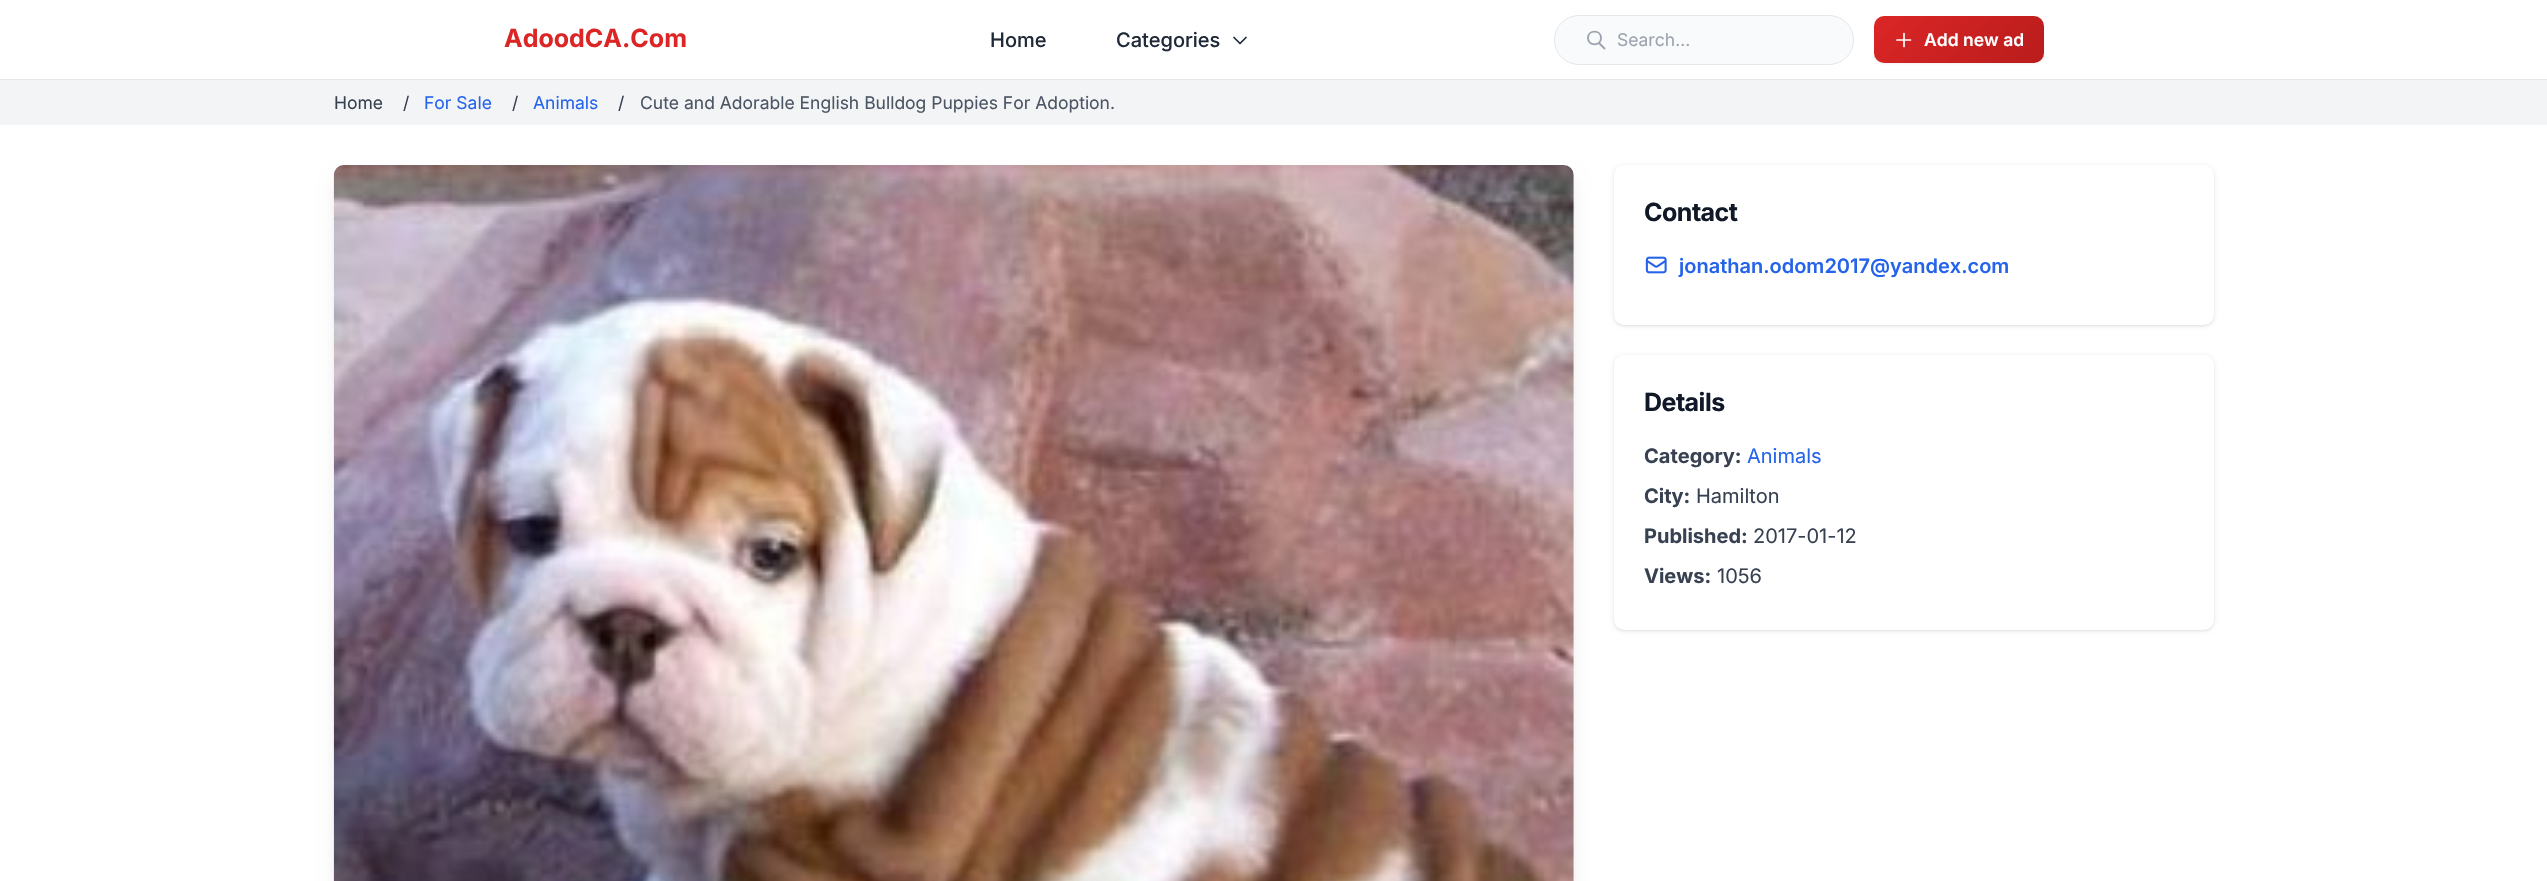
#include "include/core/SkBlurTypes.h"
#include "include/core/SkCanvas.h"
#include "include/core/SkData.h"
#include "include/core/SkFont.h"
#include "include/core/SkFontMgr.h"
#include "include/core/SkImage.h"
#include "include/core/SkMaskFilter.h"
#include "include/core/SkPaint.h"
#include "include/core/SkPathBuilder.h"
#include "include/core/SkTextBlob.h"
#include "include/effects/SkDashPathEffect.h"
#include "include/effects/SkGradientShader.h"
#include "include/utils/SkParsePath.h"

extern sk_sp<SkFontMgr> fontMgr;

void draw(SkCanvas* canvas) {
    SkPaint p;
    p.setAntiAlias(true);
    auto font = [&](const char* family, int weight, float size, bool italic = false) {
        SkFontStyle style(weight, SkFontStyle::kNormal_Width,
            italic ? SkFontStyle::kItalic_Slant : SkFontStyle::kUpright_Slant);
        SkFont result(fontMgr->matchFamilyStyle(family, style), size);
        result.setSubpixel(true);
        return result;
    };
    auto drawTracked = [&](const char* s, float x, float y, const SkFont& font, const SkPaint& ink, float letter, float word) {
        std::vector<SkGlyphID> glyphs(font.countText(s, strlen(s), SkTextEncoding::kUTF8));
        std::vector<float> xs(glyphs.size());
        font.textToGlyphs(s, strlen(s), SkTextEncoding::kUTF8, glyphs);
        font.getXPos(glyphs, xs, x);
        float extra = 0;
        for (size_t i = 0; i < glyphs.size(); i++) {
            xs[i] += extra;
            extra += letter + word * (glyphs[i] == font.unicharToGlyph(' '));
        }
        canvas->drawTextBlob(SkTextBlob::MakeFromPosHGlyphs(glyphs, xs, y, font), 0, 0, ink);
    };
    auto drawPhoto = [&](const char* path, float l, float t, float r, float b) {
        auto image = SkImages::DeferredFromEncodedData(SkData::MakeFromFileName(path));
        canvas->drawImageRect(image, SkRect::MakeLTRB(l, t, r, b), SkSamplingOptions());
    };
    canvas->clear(0xFFFFFFFF);
    p.setColor(0xFFE5E7EB);
    canvas->drawRect(SkRect::MakeLTRB(0, 79, 2547, 80), p);
    auto font1 = font("Inter", 700, 25);
    p.setColor(0xFFDC2626);
    canvas->drawString("AdoodCA.Com", 504, 47, font1, p);
    auto font2 = font("Inter", 500, 20);
    p.setColor(0xFF1F2937);
    canvas->drawString("Home", 990, 47, font2, p);
    canvas->drawString("Categories", 1116, 47, font2, p);
    p.setStyle(SkPaint::kStroke_Style);
    p.setStrokeWidth(1.7f);
    p.setStrokeCap(SkPaint::kRound_Cap);
    p.setStrokeJoin(SkPaint::kRound_Join);
    canvas->drawPath(SkPathBuilder().moveTo(1246, 37.5f).lineTo(1240, 43.5f).lineTo(1234, 37.5f).detach(), p);
    p.setStyle(SkPaint::kFill_Style);
    p.setColor(0xFFF9FAFB);
    canvas->drawRoundRect(SkRect::MakeLTRB(1554.5f, 15.5f, 1853.5f, 64.5f), 24.5f, 24.5f, p);
    p.setStyle(SkPaint::kStroke_Style);
    p.setStrokeWidth(1);
    p.setStrokeCap(SkPaint::kButt_Cap);
    p.setStrokeJoin(SkPaint::kMiter_Join);
    p.setColor(0xFFE5E7EB);
    canvas->drawRoundRect(SkRect::MakeLTRB(1554.5f, 15.5f, 1853.5f, 64.5f), 24.5f, 24.5f, p);
    p.setStrokeWidth(1.9f);
    p.setStrokeCap(SkPaint::kRound_Cap);
    p.setStrokeJoin(SkPaint::kRound_Join);
    p.setColor(0xFF9CA3AF);
    canvas->drawPath(SkPathBuilder().moveTo(1604.5f, 48.5f).lineTo(1599, 43).moveTo(1601, 38).cubicTo(1601, 46.5f, 1588, 46.5f, 1588, 38).cubicTo(1588, 29.5f, 1601, 29.5f, 1601, 38).close().detach(), p);
    auto font3 = font("Inter", 400, 17.5f);
    p.setStyle(SkPaint::kFill_Style);
    canvas->drawString("Search...", 1617, 46, font3, p);
    p.setColor(0x0D000000);
    p.setMaskFilter(SkMaskFilter::MakeBlur(kNormal_SkBlurStyle, 1));
    canvas->drawRoundRect(SkRect::MakeLTRB(1874, 18, 2044, 64), 10, 10, p);
    p.setMaskFilter(nullptr);
    {
        const SkColor colors[] = {0xFFDC2626, 0xFFB91C1C};
        const float stops[] = {0, 1};
        const SkPoint ends[] = {{1905, -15}, {2013, 93}};
        p.setShader(SkGradientShader::MakeLinear(ends, colors, stops, 2, SkTileMode::kClamp));
        p.setAlpha(255);
    }
    canvas->drawRoundRect(SkRect::MakeLTRB(1874, 16, 2044, 63), 10, 10, p);
    p.setStyle(SkPaint::kStroke_Style);
    p.setStrokeWidth(1.7f);
    p.setShader(nullptr);
    p.setColor(0xFFFFFFFF);
    canvas->drawPath(SkPathBuilder().moveTo(1904, 33.5f).lineTo(1904, 46.5f).moveTo(1910.5f, 40).lineTo(1897, 40).detach(), p);
    auto font4 = font("Inter", 600, 17.5f);
    p.setStyle(SkPaint::kFill_Style);
    canvas->drawString("Add new ad", 1924, 46, font4, p);
    p.setColor(0xFFF3F4F6);
    canvas->drawRect(SkRect::MakeLTRB(0, 80, 2547, 125), p);
    p.setColor(0xFF374151);
    canvas->drawString("Home", 334, 109, font3, p);
    canvas->drawString("/", 403, 109, font3, p);
    p.setColor(0xFF2563EB);
    canvas->drawString("For Sale", 424, 109, font3, p);
    p.setColor(0xFF374151);
    canvas->drawString("/", 512, 109, font3, p);
    p.setColor(0xFF2563EB);
    canvas->drawString("Animals", 533, 109, font3, p);
    p.setColor(0xFF374151);
    canvas->drawString("/", 618, 109, font3, p);
    p.setColor(0xFF4B5563);
    canvas->drawString("Cute and Adorable English Bulldog Puppies For Adoption.", 640, 109, font3, p);
    p.setColor(0x1A000000);
    p.setMaskFilter(SkMaskFilter::MakeBlur(kNormal_SkBlurStyle, 9.5f));
    canvas->drawRoundRect(SkRect::MakeLTRB(338, 181, 1570, 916), 6, 6, p);
    p.setMaskFilter(nullptr);
    drawPhoto("media/1.png", 333, 165, 1574, 881);
    p.setMaskFilter(SkMaskFilter::MakeBlur(kNormal_SkBlurStyle, 1));
    canvas->drawRoundRect(SkRect::MakeLTRB(1615, 168, 2213, 325), 9, 9, p);
    p.setMaskFilter(nullptr);
    p.setMaskFilter(SkMaskFilter::MakeBlur(kNormal_SkBlurStyle, 2));
    canvas->drawRoundRect(SkRect::MakeLTRB(1614, 166, 2214, 326), 10, 10, p);
    p.setMaskFilter(nullptr);
    p.setColor(0xFFFFFFFF);
    canvas->drawRoundRect(SkRect::MakeLTRB(1614, 165, 2214, 325), 10, 10, p);
    p.setColor(0xFF111827);
    drawTracked("Contact", 1644, 221, font1, p, -0.5f, 0);
    drawPhoto("media/2.png", 1645, 256, 1667, 274);
    auto font5 = font("Inter", 600, 20);
    p.setColor(0xFF2563EB);
    canvas->drawString("jonathan.odom2017@yandex.com", 1679, 273, font5, p);
    p.setColor(0x1A000000);
    p.setMaskFilter(SkMaskFilter::MakeBlur(kNormal_SkBlurStyle, 1));
    canvas->drawRoundRect(SkRect::MakeLTRB(1615, 358, 2213, 630), 9, 9, p);
    p.setMaskFilter(nullptr);
    p.setMaskFilter(SkMaskFilter::MakeBlur(kNormal_SkBlurStyle, 2));
    canvas->drawRoundRect(SkRect::MakeLTRB(1614, 356, 2214, 631), 10, 10, p);
    p.setMaskFilter(nullptr);
    p.setColor(0xFFFFFFFF);
    canvas->drawRoundRect(SkRect::MakeLTRB(1614, 355, 2214, 630), 10, 10, p);
    p.setColor(0xFF111827);
    drawTracked("Details", 1644, 411, font1, p, -0.5f, 0);
    auto font6 = font("Inter", 700, 20);
    p.setColor(0xFF374151);
    canvas->drawString("Category:", 1644, 463, font6, p);
    auto font7 = font("Inter", 400, 20);
    p.setColor(0xFF2563EB);
    canvas->drawString("Animals", 1747, 463, font7, p);
    p.setColor(0xFF374151);
    canvas->drawString("City:", 1644, 503, font6, p);
    canvas->drawString("Hamilton", 1696, 503, font7, p);
    canvas->drawString("Published:", 1644, 543, font6, p);
    canvas->drawString("2017-01-12", 1753, 543, font7, p);
    canvas->drawString("Views:", 1644, 583, font6, p);
    canvas->drawString("1056", 1717, 583, font7, p);
}
